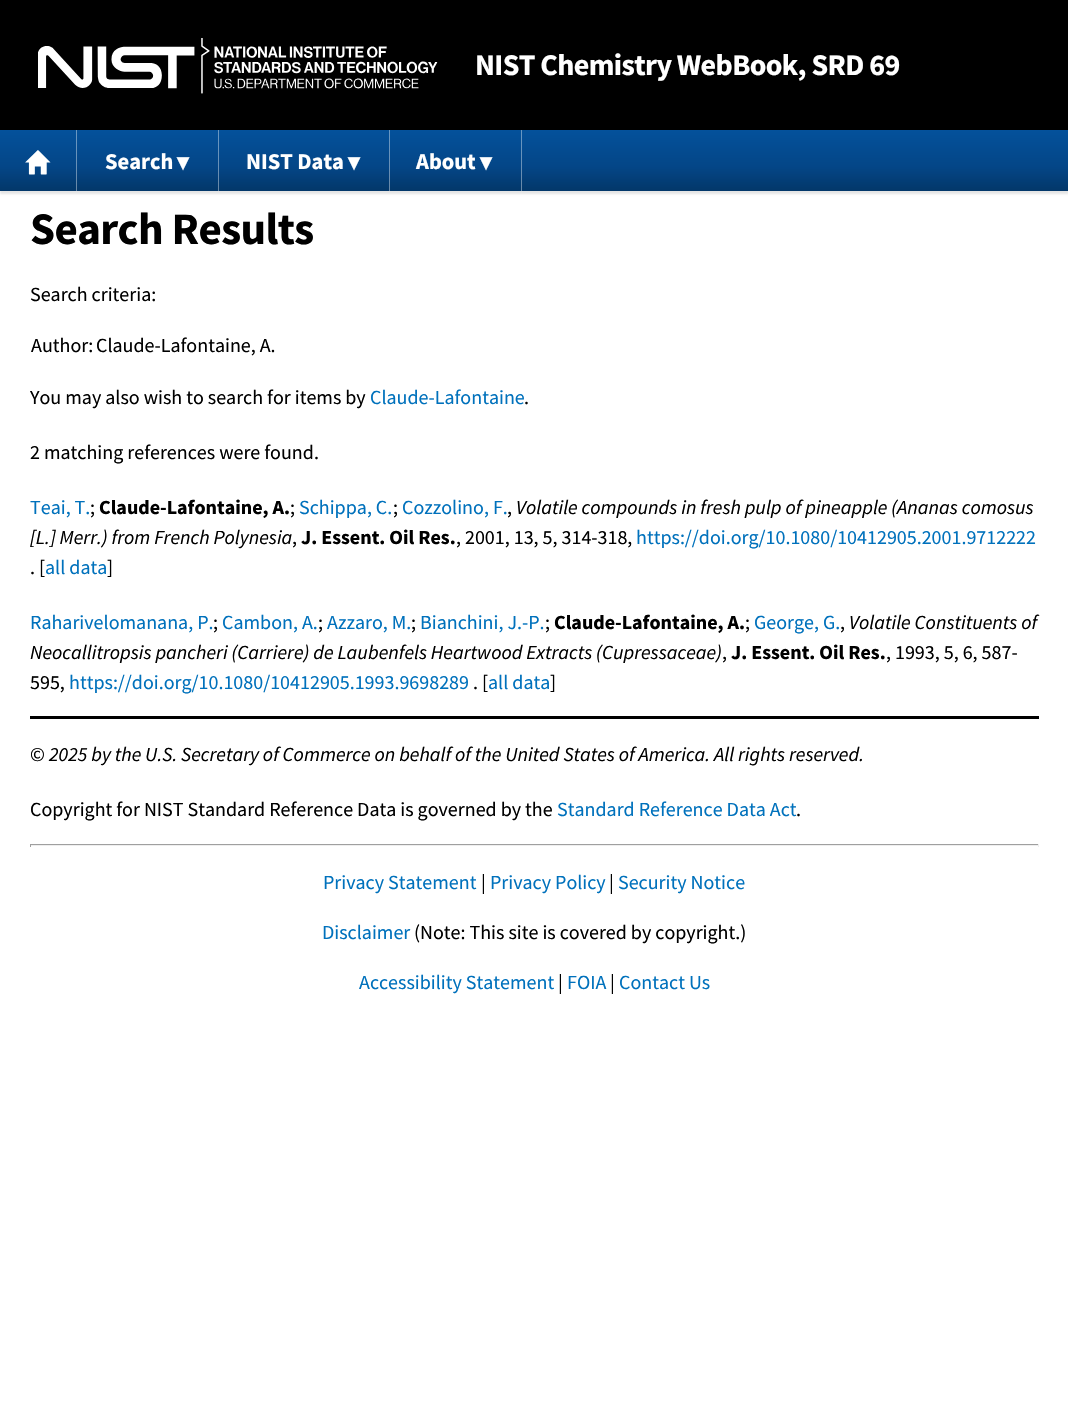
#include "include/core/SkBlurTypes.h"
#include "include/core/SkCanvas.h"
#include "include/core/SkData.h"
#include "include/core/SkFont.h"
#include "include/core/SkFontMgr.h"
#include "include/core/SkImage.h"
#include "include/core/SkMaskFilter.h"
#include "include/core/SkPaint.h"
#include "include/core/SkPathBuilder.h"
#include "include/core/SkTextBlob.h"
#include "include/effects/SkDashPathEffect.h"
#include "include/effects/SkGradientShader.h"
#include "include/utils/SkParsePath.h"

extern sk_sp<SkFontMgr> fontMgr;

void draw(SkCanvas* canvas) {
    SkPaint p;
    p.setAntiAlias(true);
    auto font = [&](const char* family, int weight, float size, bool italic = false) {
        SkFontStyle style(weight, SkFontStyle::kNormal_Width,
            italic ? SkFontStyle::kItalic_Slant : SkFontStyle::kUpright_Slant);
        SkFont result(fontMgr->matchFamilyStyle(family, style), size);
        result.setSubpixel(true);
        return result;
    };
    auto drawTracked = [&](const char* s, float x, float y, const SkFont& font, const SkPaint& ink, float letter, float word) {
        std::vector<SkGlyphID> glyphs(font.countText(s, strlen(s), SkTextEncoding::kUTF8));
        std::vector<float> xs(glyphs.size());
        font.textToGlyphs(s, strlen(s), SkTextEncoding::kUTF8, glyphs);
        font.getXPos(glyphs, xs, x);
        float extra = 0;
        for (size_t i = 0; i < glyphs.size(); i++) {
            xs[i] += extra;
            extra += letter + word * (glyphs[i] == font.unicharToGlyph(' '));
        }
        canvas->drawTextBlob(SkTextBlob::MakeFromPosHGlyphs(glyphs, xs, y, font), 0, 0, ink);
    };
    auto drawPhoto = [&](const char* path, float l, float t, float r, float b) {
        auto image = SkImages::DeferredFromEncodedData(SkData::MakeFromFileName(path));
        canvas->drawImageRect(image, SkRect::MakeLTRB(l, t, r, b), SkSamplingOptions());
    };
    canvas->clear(0xFFFFFFFF);
    p.setColor(0x1A000000);
    p.setMaskFilter(SkMaskFilter::MakeBlur(kNormal_SkBlurStyle, 1));
    canvas->drawRect(SkRect::MakeLTRB(0, 133, 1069, 194), p);
    p.setMaskFilter(nullptr);
    p.setColor(0xFF000000);
    canvas->drawRect(SkRect::MakeLTRB(0, 0, 1068, 130), p);
    drawPhoto("media/1.png", 38, 38, 438, 94);
    auto font1 = font("Source Sans Pro", 700, 30);
    p.setColor(0xFFFFFFFF);
    drawTracked("NIST Chemistry WebBook, SRD 69", 475, 75, font1, p, -0.6f, 0);
    {
        const SkColor colors[] = {0xFF04519B, 0xFF044687, 0xFF033769};
        const float stops[] = {0, 0.6f, 1};
        const SkPoint ends[] = {{534, 130}, {534, 191}};
        p.setShader(SkGradientShader::MakeLinear(ends, colors, stops, 3, SkTileMode::kClamp));
        p.setAlpha(255);
    }
    canvas->drawRect(SkRect::MakeLTRB(0, 130, 1068, 191), p);
    {
        const SkColor colors[] = {0xFF6897C3, 0xFF6890B7, 0xFF6887A5};
        const float stops[] = {0, 0.6f, 1};
        const SkPoint ends[] = {{534, 130}, {534, 191}};
        p.setShader(SkGradientShader::MakeLinear(ends, colors, stops, 3, SkTileMode::kClamp));
        p.setAlpha(255);
    }
    canvas->drawRect(SkRect::MakeLTRB(521, 130, 522, 191), p);
    canvas->drawRect(SkRect::MakeLTRB(389, 130, 390, 191), p);
    canvas->drawRect(SkRect::MakeLTRB(218, 130, 219, 191), p);
    canvas->drawRect(SkRect::MakeLTRB(76, 130, 77, 191), p);
    drawPhoto("media/2.png", 25, 150, 51, 175);
    auto font2 = font("Source Sans Pro", 700, 22.5f);
    p.setShader(nullptr);
    p.setColor(0xFFFFFFFF);
    canvas->drawString("Search", 105, 169, font2, p);
    auto font3 = font("Source Sans Pro", 700, 16);
    canvas->drawString("▼", 176, 169, font3, p);
    canvas->drawString("NIST Data", 246, 169, font2, p);
    canvas->drawString("▼", 347, 169, font3, p);
    canvas->drawString("About", 416, 169, font2, p);
    canvas->drawString("▼", 479, 169, font3, p);
    auto font4 = font("Source Sans Pro", 700, 45);
    p.setColor(0xFF000000);
    drawTracked("Search Results", 30, 244, font4, p, -0.6f, 0);
    auto font5 = font("Source Sans Pro", 400, 20);
    {
        const struct { const char* s; float x, y; } items[] = {
            {"Search criteria:", 30, 301},
            {"Author:", 31, 352},
            {"Claude-Lafontaine, A.", 96, 352},
            {"You may also wish to search for items by", 30, 404},
        };
        for (auto [s, x, y] : items) {
            canvas->drawString(s, x, y, font5, p);
        }
    }
    p.setColor(0xFF0071BC);
    canvas->drawString("Claude-Lafontaine", 370, 404, font5, p);
    p.setColor(0xFF000000);
    canvas->drawString(".", 524, 404, font5, p);
    canvas->drawString("2 matching references were found.", 30, 459, font5, p);
    p.setColor(0xFF0071BC);
    canvas->drawString("Teai, T.", 30, 514, font5, p);
    p.setColor(0xFF000000);
    canvas->drawString(";", 90, 514, font5, p);
    auto font6 = font("Source Sans Pro", 700, 20);
    canvas->drawString("Claude-Lafontaine, A.", 99, 514, font6, p);
    canvas->drawString(";", 290, 514, font5, p);
    p.setColor(0xFF0071BC);
    canvas->drawString("Schippa, C.", 299, 514, font5, p);
    p.setColor(0xFF000000);
    canvas->drawString(";", 393, 514, font5, p);
    p.setColor(0xFF0071BC);
    canvas->drawString("Cozzolino, F.", 402, 514, font5, p);
    p.setColor(0xFF000000);
    canvas->drawString(",", 507, 514, font5, p);
    auto font7 = font("Source Sans Pro", 400, 20, true);
    canvas->drawString("Volatile compounds in fresh pulp of pineapple (Ananas comosus", 516, 514, font7, p);
    canvas->drawString("[L.] Merr.) from French Polynesia", 30, 544, font7, p);
    canvas->drawString(",", 292, 544, font5, p);
    canvas->drawString("J. Essent. Oil Res.", 301, 544, font6, p);
    canvas->drawString(", 2001, 13, 5, 314-318,", 456, 544, font5, p);
    p.setColor(0xFF0071BC);
    canvas->drawString("https://doi.org/10.1080/10412905.2001.9712222", 636, 544, font5, p);
    p.setColor(0xFF000000);
    canvas->drawString(". [", 30, 574, font5, p);
    p.setColor(0xFF0071BC);
    canvas->drawString("all data", 45, 574, font5, p);
    p.setColor(0xFF000000);
    canvas->drawString("]", 107, 574, font5, p);
    p.setColor(0xFF0071BC);
    canvas->drawString("Raharivelomanana, P.", 30, 629, font5, p);
    p.setColor(0xFF000000);
    canvas->drawString(";", 213, 629, font5, p);
    p.setColor(0xFF0071BC);
    canvas->drawString("Cambon, A.", 222, 629, font5, p);
    p.setColor(0xFF000000);
    canvas->drawString(";", 318, 629, font5, p);
    p.setColor(0xFF0071BC);
    canvas->drawString("Azzaro, M.", 327, 629, font5, p);
    p.setColor(0xFF000000);
    canvas->drawString(";", 411, 629, font5, p);
    p.setColor(0xFF0071BC);
    canvas->drawString("Bianchini, J.-P.", 420, 629, font5, p);
    p.setColor(0xFF000000);
    canvas->drawString(";", 545, 629, font5, p);
    canvas->drawString("Claude-Lafontaine, A.", 554, 629, font6, p);
    canvas->drawString(";", 745, 629, font5, p);
    p.setColor(0xFF0071BC);
    canvas->drawString("George, G.", 754, 629, font5, p);
    p.setColor(0xFF000000);
    canvas->drawString(",", 840, 629, font5, p);
    canvas->drawString("Volatile Constituents of", 849, 629, font7, p);
    canvas->drawString("Neocallitropsis pancheri (Carriere) de Laubenfels Heartwood Extracts (Cupressaceae)", 30, 659, font7, p);
    canvas->drawString(",", 722, 659, font5, p);
    canvas->drawString("J. Essent. Oil Res.", 731, 659, font6, p);
    canvas->drawString(", 1993, 5, 6, 587-", 886, 659, font5, p);
    canvas->drawString("595,", 30, 689, font5, p);
    p.setColor(0xFF0071BC);
    canvas->drawString("https://doi.org/10.1080/10412905.1993.9698289", 69, 689, font5, p);
    p.setColor(0xFF000000);
    canvas->drawString(". [", 473, 689, font5, p);
    p.setColor(0xFF0071BC);
    canvas->drawString("all data", 488, 689, font5, p);
    p.setColor(0xFF000000);
    canvas->drawString("]", 550, 689, font5, p);
    canvas->drawRect(SkRect::MakeLTRB(30, 716, 1039, 719), p);
    canvas->drawString("©", 30, 761, font5, p);
    canvas->drawString("2025 by the U.S. Secretary of Commerce on behalf of the United States of America. All rights reserved.", 49, 761, font7, p);
    canvas->drawString("Copyright for NIST Standard Reference Data is governed by the", 30, 816, font5, p);
    p.setColor(0xFF0071BC);
    canvas->drawString("Standard Reference Data Act", 557, 816, font5, p);
    p.setColor(0xFF000000);
    canvas->drawString(".", 796, 816, font5, p);
    {
        const struct { float l, t, r, b; SkColor color; } items[] = {
            {30, 844, 1039, 845, 0xFF9F9F9F},
            {1038, 844, 1039, 847, 0xFFEEEEEE},
            {30, 845, 1039, 846, 0xFFEEEEEE},
            {30, 844, 31, 847, 0xFF9F9F9F},
        };
        for (auto [l, t, r, b, color] : items) {
            p.setColor(color);
            canvas->drawRect(SkRect::MakeLTRB(l, t, r, b), p);
        }
    }
    p.setColor(0xFF0071BC);
    canvas->drawString("Privacy Statement", 323, 889, font5, p);
    p.setColor(0xFF000000);
    canvas->drawString("|", 481, 889, font5, p);
    p.setColor(0xFF0071BC);
    canvas->drawString("Privacy Policy", 490, 889, font5, p);
    p.setColor(0xFF000000);
    canvas->drawString("|", 609, 889, font5, p);
    p.setColor(0xFF0071BC);
    canvas->drawString("Security Notice", 618, 889, font5, p);
    canvas->drawString("Disclaimer", 322, 939, font5, p);
    p.setColor(0xFF000000);
    canvas->drawString("(Note: This site is covered by copyright.)", 414, 939, font5, p);
    p.setColor(0xFF0071BC);
    canvas->drawString("Accessibility Statement", 359, 989, font5, p);
    p.setColor(0xFF000000);
    canvas->drawString("|", 558, 989, font5, p);
    p.setColor(0xFF0071BC);
    canvas->drawString("FOIA", 567, 989, font5, p);
    p.setColor(0xFF000000);
    canvas->drawString("|", 610, 989, font5, p);
    p.setColor(0xFF0071BC);
    canvas->drawString("Contact Us", 619, 989, font5, p);
}
